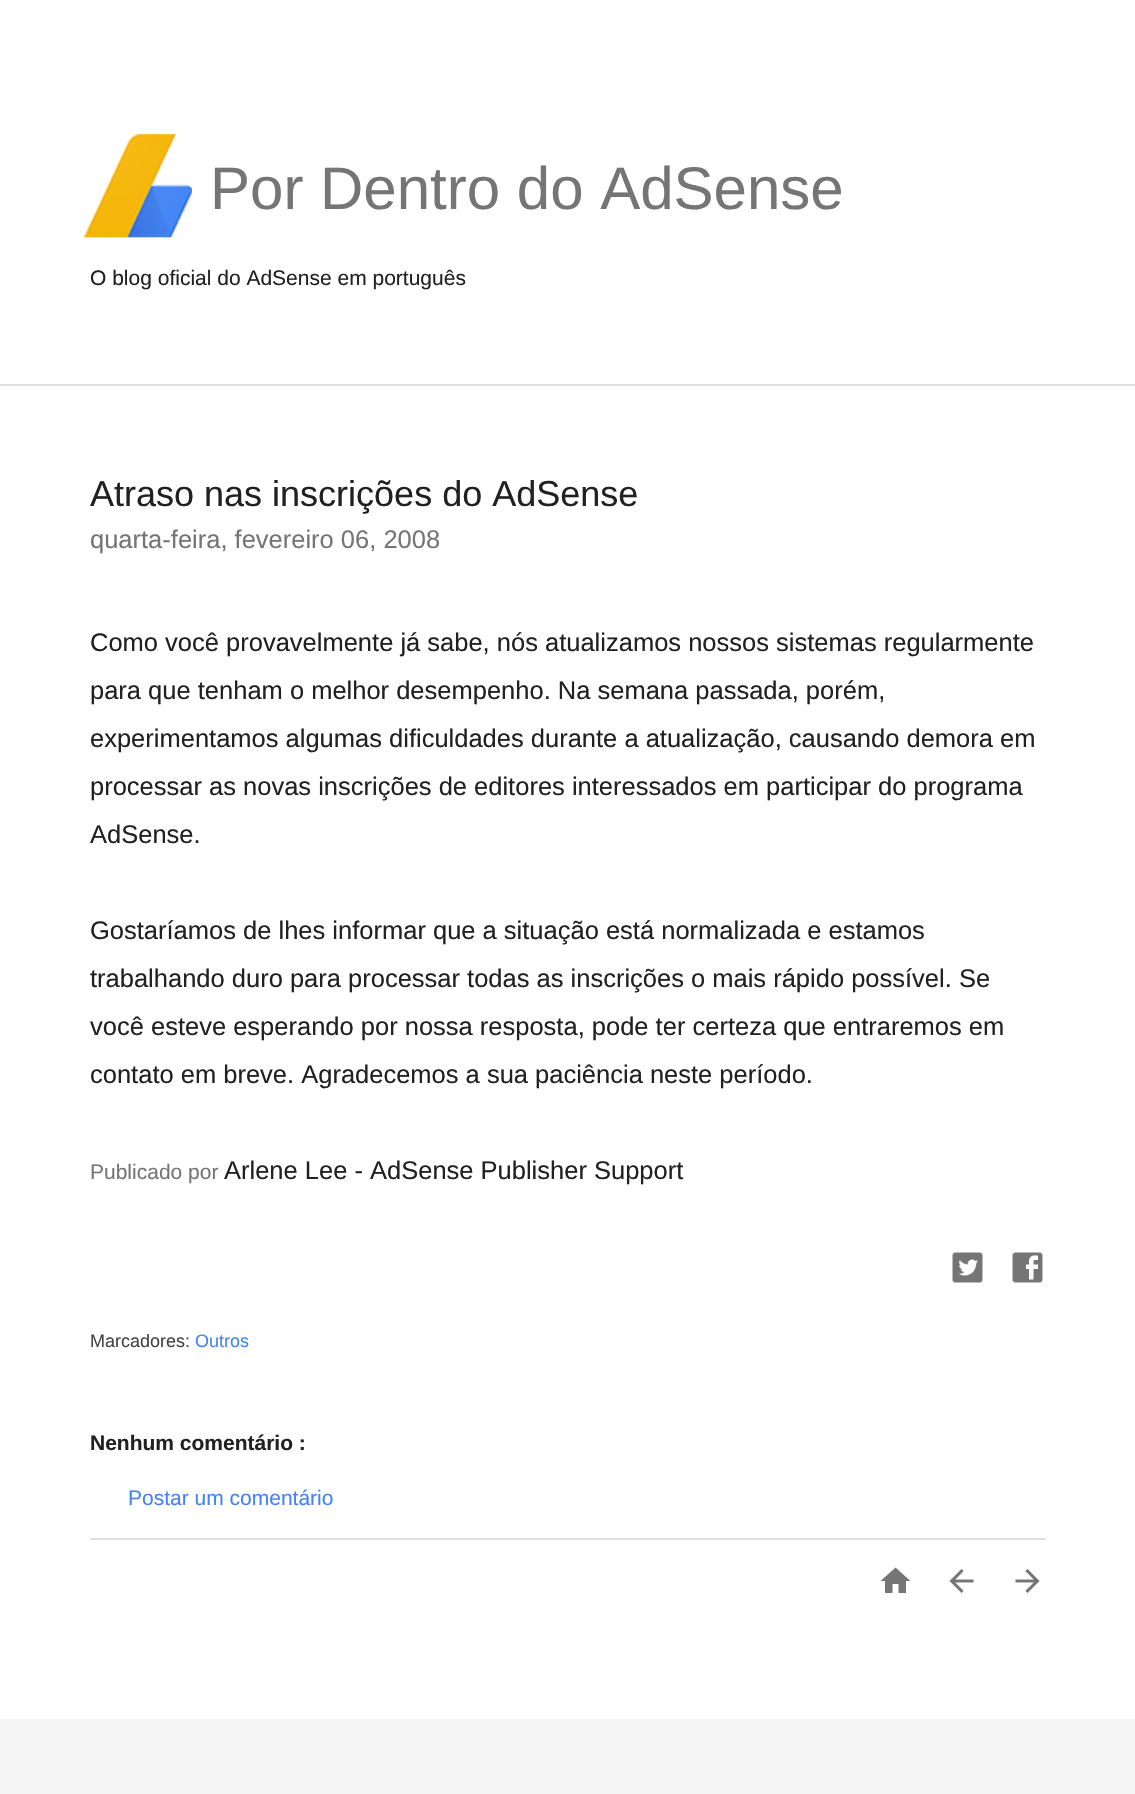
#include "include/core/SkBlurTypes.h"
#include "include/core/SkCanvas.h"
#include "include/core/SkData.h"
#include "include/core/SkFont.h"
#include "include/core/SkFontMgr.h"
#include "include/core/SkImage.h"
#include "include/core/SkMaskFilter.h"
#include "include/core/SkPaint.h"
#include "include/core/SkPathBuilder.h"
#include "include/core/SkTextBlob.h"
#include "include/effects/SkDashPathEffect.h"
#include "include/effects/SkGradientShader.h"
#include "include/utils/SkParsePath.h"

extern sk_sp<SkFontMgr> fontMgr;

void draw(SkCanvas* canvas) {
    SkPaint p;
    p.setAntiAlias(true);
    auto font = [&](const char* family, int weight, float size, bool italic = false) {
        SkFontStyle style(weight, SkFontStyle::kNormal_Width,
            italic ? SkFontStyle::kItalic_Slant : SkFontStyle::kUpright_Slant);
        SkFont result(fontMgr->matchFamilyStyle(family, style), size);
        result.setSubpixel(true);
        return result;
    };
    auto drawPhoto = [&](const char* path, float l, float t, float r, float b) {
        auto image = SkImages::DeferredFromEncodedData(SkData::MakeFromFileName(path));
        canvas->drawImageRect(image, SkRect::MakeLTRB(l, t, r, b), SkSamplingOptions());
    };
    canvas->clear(0xFFFFFFFF);
    p.setColor(0xFFE0E0E0);
    canvas->drawRect(SkRect::MakeLTRB(0, 384, 1135, 386), p);
    drawPhoto("media/1.png", 84, 133, 192, 238);
    auto font1 = font("Liberation Sans", 400, 60);
    p.setColor(0xFF757575);
    canvas->drawString("Por Dentro do AdSense", 210, 209, font1, p);
    auto font2 = font("Liberation Sans", 400, 21);
    p.setColor(0xFF212121);
    canvas->drawString("O blog oficial do AdSense em português", 90, 285, font2, p);
    auto font3 = font("Liberation Sans", 400, 36);
    canvas->drawString("Atraso nas inscrições do AdSense", 90, 506, font3, p);
    auto font4 = font("Liberation Sans", 400, 25.5f);
    p.setColor(0xFF757575);
    canvas->drawString("quarta-feira, fevereiro 06, 2008", 90, 548, font4, p);
    p.setColor(0xFF212121);
    {
        const struct { const char* s; float x, y; } items[] = {
            {"Como você provavelmente já sabe, nós atualizamos nossos sistemas regularmente", 90, 651},
            {"para que tenham o melhor desempenho. Na semana passada, porém,", 90, 699},
            {"experimentamos algumas dificuldades durante a atualização, causando demora em", 90, 747},
            {"processar as novas inscrições de editores interessados em participar do programa", 90, 795},
            {"AdSense.", 90, 843},
            {"Gostaríamos de lhes informar que a situação está normalizada e estamos", 90, 939},
            {"trabalhando duro para processar todas as inscrições o mais rápido possível. Se", 90, 987},
            {"você esteve esperando por nossa resposta, pode ter certeza que entraremos em", 90, 1035},
            {"contato em breve. Agradecemos a sua paciência neste período.", 90, 1083},
        };
        for (auto [s, x, y] : items) {
            canvas->drawString(s, x, y, font4, p);
        }
    }
    p.setColor(0xFF757575);
    canvas->drawString("Publicado por", 90, 1179, font2, p);
    p.setColor(0xFF212121);
    canvas->drawString("Arlene Lee - AdSense Publisher Support", 224, 1179, font4, p);
    drawPhoto("media/2.png", 952, 1252, 983, 1283);
    drawPhoto("media/3.png", 1012, 1252, 1043, 1283);
    auto font5 = font("Liberation Sans", 400, 18);
    p.setColor(0xFF444444);
    canvas->drawString("Marcadores:", 90, 1347, font5, p);
    p.setColor(0xFF4184F3);
    canvas->drawString("Outros", 195, 1347, font5, p);
    auto font6 = font("Liberation Sans", 700, 21);
    p.setColor(0xFF212121);
    canvas->drawString("Nenhum comentário :", 90, 1450, font6, p);
    p.setColor(0xFF4184F3);
    canvas->drawString("Postar um comentário", 128, 1505, font2, p);
    p.setColor(0xFFE0E0E0);
    canvas->drawRect(SkRect::MakeLTRB(90, 1538, 1046, 1540), p);
    p.setColor(0xFF757575);
    canvas->drawPath(SkPathBuilder().moveTo(892.5f, 1593).lineTo(885, 1593).lineTo(885, 1581).lineTo(880.5f, 1581).lineTo(895.5f, 1567.5f).lineTo(910.5f, 1581).lineTo(906, 1581).lineTo(906, 1593).lineTo(898.5f, 1593).lineTo(898.5f, 1584).lineTo(892.5f, 1584).close().detach(), p);
    drawPhoto("media/4.png", 949, 1569, 974, 1593);
    drawPhoto("media/5.png", 1015, 1569, 1040, 1593);
    p.setColor(0xFFF5F5F5);
    canvas->drawRect(SkRect::MakeLTRB(0, 1719, 1135, 1794), p);
}
